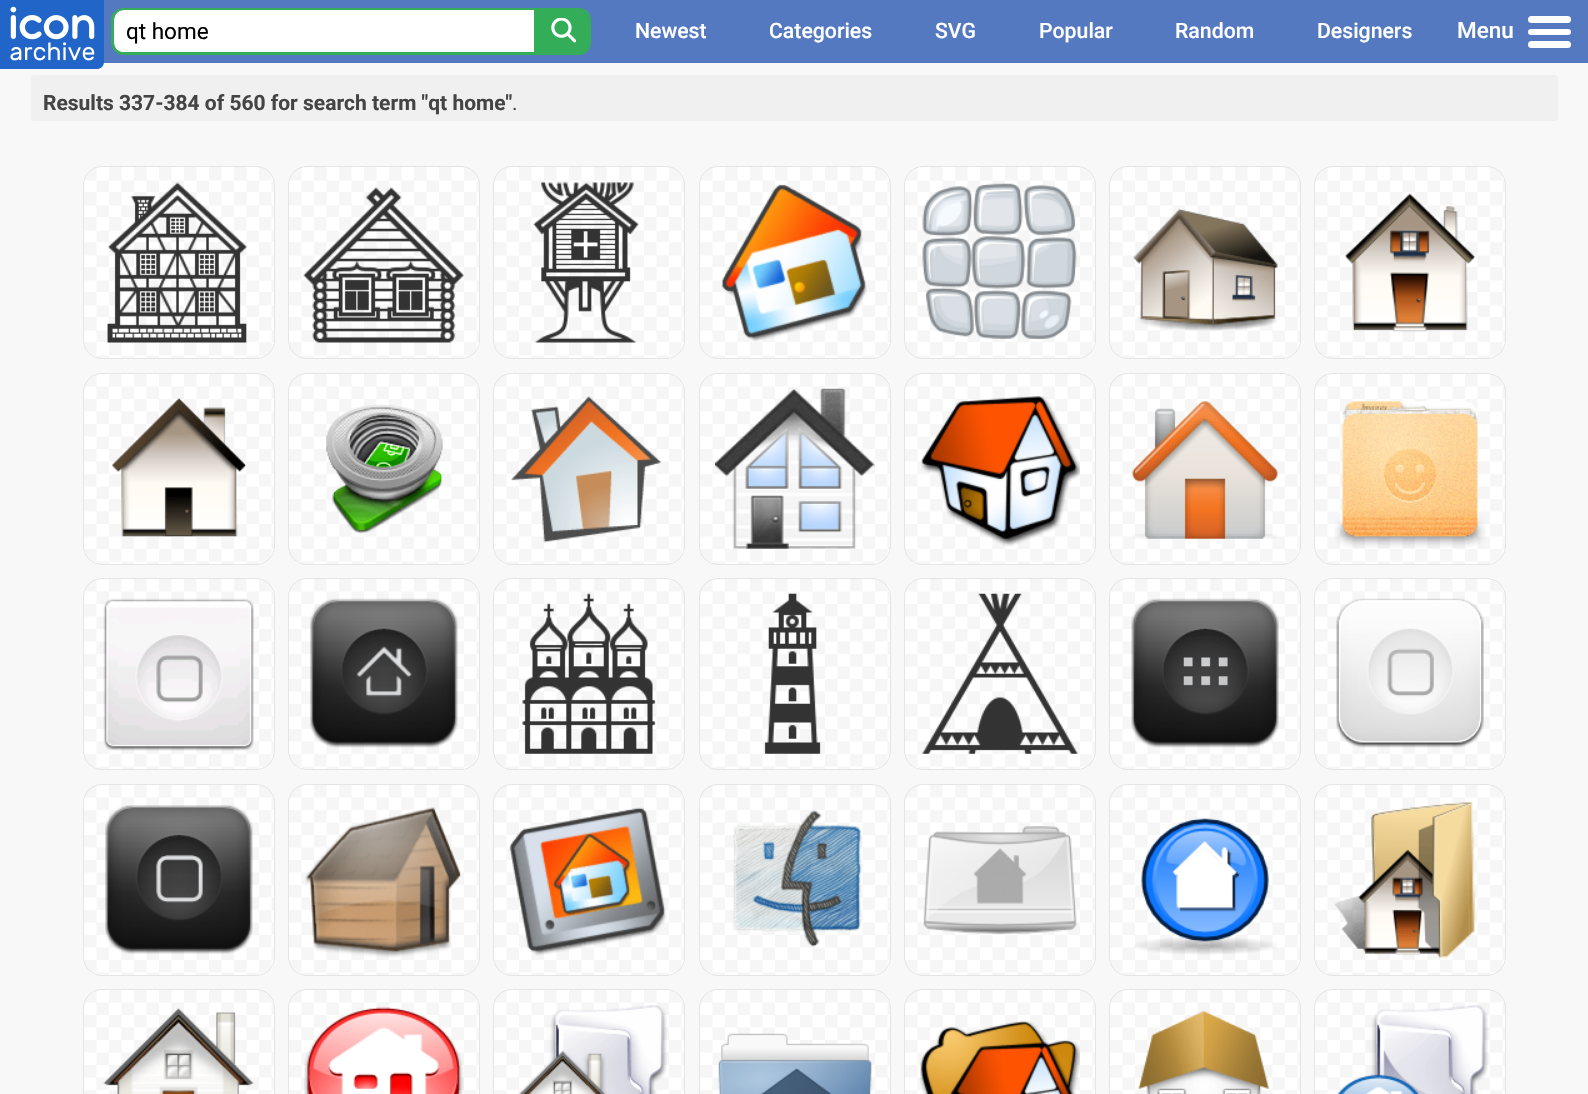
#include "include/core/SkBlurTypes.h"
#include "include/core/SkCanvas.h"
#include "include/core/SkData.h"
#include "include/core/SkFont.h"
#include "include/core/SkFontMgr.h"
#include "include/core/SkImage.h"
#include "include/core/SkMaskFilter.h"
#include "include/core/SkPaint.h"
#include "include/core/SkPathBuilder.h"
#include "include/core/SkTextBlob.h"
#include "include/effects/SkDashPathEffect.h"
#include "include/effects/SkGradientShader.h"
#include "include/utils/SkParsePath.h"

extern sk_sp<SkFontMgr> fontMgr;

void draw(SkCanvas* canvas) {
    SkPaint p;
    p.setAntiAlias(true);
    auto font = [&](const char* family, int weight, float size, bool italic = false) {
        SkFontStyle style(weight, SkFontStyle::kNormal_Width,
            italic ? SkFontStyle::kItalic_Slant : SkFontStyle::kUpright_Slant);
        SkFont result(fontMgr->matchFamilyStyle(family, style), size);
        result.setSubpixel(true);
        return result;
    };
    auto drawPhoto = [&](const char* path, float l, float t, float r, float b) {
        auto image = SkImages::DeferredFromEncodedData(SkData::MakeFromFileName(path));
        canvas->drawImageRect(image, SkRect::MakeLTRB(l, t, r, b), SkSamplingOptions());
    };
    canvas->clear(0xFFF8F8F8);
    p.setColor(0xFF5479C1);
    canvas->drawRect(SkRect::MakeLTRB(103, 0, 1588, 63), p);
    drawPhoto("media/1.png", 0, 0, 104, 69);
    p.setColor(0xFFFFFFFF);
    canvas->drawPath(SkPathBuilder().moveTo(124, 10).lineTo(534, 10).lineTo(534, 53).lineTo(124, 53).cubicTo(118.5f, 53, 114, 48.5f, 114, 43).lineTo(114, 20).cubicTo(114, 14.5f, 118.5f, 10, 124, 10).close().detach(), p);
    p.setColor(0xFF34AD59);
    canvas->drawPath(SkPathBuilder(SkPathFillType::kEvenOdd).moveTo(124, 8).lineTo(534, 8).lineTo(534, 55).lineTo(124, 55).cubicTo(117, 55, 111, 49, 111, 42).lineTo(111, 20).cubicTo(111, 13, 117, 8, 124, 8).close().moveTo(124, 10).lineTo(534, 10).lineTo(534, 52).lineTo(122, 52).cubicTo(112, 50, 114, 39, 114, 31).cubicTo(114, 23, 112, 10, 124, 10).close().detach(), p);
    auto font1 = font("Roboto", 400, 22.5f);
    p.setColor(0xFF000000);
    canvas->drawString("qt home", 126, 39, font1, p);
    p.setColor(0xFF34AD59);
    canvas->drawPath(SkPathBuilder().moveTo(534, 10).lineTo(579, 10).cubicTo(584.5f, 10, 589, 14.5f, 589, 20).lineTo(589, 43).cubicTo(589, 48.5f, 584.5f, 53, 579, 53).lineTo(534, 53).close().detach(), p);
    canvas->drawPath(SkPathBuilder(SkPathFillType::kEvenOdd).moveTo(534, 8).lineTo(579, 8).cubicTo(586, 8, 591, 13, 591, 20).lineTo(591, 42).cubicTo(591, 49, 586, 55, 579, 55).lineTo(534, 55).close().moveTo(534, 10).lineTo(579, 10).cubicTo(584, 10, 589, 14, 589, 20).lineTo(589, 42).cubicTo(589, 48, 584, 52, 579, 52).lineTo(534, 52).close().detach(), p);
    drawPhoto("media/2.png", 551, 18, 576, 43);
    auto font2 = font("Roboto", 500, 21.25f);
    p.setColor(0xFFFFFFFF);
    {
        const struct { const char* s; float x, y; } items[] = {
            {"Newest", 635, 38},
            {"Categories", 769, 38},
            {"SVG", 935, 38},
            {"Popular", 1039, 38},
            {"Random", 1175, 38},
            {"Designers", 1317, 38},
        };
        for (auto [s, x, y] : items) {
            canvas->drawString(s, x, y, font2, p);
        }
    }
    auto font3 = font("Roboto", 500, 22.5f);
    canvas->drawString("Menu", 1457, 38, font3, p);
    canvas->drawRoundRect(SkRect::MakeLTRB(1528, 16, 1571, 23), 3.5f, 3.5f, p);
    canvas->drawRoundRect(SkRect::MakeLTRB(1528, 29, 1571, 35), 3, 3, p);
    canvas->drawRoundRect(SkRect::MakeLTRB(1528, 41, 1571, 48), 3.5f, 3.5f, p);
    p.setColor(0xFFF0F0F0);
    canvas->drawRoundRect(SkRect::MakeLTRB(31, 75, 1558, 121), 4, 4, p);
    auto font4 = font("Roboto", 700, 21);
    p.setColor(0xFF444444);
    canvas->drawString("Results 337-384 of 560 for search term \"qt home\"", 43, 110, font4, p);
    auto font5 = font("Roboto", 400, 21);
    canvas->drawString(".", 512, 110, font5, p);
    drawPhoto("media/3.png", 83, 167, 275, 358);
    p.setStyle(SkPaint::kStroke_Style);
    p.setStrokeWidth(1);
    p.setColor(0xFFE5E5E5);
    canvas->drawRoundRect(SkRect::MakeLTRB(83.5f, 166.5f, 274.5f, 358.5f), 18.5f, 18.5f, p);
    drawPhoto("media/4.png", 107, 182, 248, 343);
    drawPhoto("media/3.png", 288, 167, 480, 358);
    canvas->drawRoundRect(SkRect::MakeLTRB(288.5f, 166.5f, 479.5f, 358.5f), 18.5f, 18.5f, p);
    drawPhoto("media/5.png", 303, 187, 464, 343);
    drawPhoto("media/6.png", 493, 167, 685, 358);
    canvas->drawRoundRect(SkRect::MakeLTRB(493.5f, 166.5f, 684.5f, 358.5f), 18.5f, 18.5f, p);
    drawPhoto("media/7.png", 533, 182, 639, 343);
    drawPhoto("media/8.png", 699, 167, 891, 358);
    canvas->drawRoundRect(SkRect::MakeLTRB(699.5f, 166.5f, 890.5f, 358.5f), 18.5f, 18.5f, p);
    drawPhoto("media/9.png", 721, 184, 867, 342);
    drawPhoto("media/8.png", 904, 167, 1096, 358);
    canvas->drawRoundRect(SkRect::MakeLTRB(904.5f, 166.5f, 1095.5f, 358.5f), 18.5f, 18.5f, p);
    drawPhoto("media/10.png", 922, 183, 1077, 340);
    drawPhoto("media/8.png", 1109, 167, 1301, 358);
    canvas->drawRoundRect(SkRect::MakeLTRB(1109.5f, 166.5f, 1300.5f, 358.5f), 18.5f, 18.5f, p);
    drawPhoto("media/11.png", 1133, 208, 1278, 331);
    drawPhoto("media/8.png", 1314, 167, 1506, 358);
    canvas->drawRoundRect(SkRect::MakeLTRB(1314.5f, 166.5f, 1505.5f, 358.5f), 18.5f, 18.5f, p);
    drawPhoto("media/12.png", 1345, 193, 1476, 332);
    drawPhoto("media/13.png", 83, 373, 275, 565);
    canvas->drawRoundRect(SkRect::MakeLTRB(83.5f, 373.5f, 274.5f, 564.5f), 18.5f, 18.5f, p);
    drawPhoto("media/14.png", 112, 398, 247, 537);
    drawPhoto("media/13.png", 288, 373, 480, 565);
    canvas->drawRoundRect(SkRect::MakeLTRB(288.5f, 373.5f, 479.5f, 564.5f), 18.5f, 18.5f, p);
    drawPhoto("media/15.png", 326, 404, 443, 534);
    drawPhoto("media/16.png", 493, 373, 685, 565);
    canvas->drawRoundRect(SkRect::MakeLTRB(493.5f, 373.5f, 684.5f, 564.5f), 18.5f, 18.5f, p);
    drawPhoto("media/17.png", 511, 396, 662, 543);
    drawPhoto("media/18.png", 699, 373, 891, 565);
    canvas->drawRoundRect(SkRect::MakeLTRB(699.5f, 373.5f, 890.5f, 564.5f), 18.5f, 18.5f, p);
    drawPhoto("media/19.png", 715, 388, 875, 549);
    drawPhoto("media/20.png", 904, 373, 1096, 565);
    canvas->drawRoundRect(SkRect::MakeLTRB(904.5f, 373.5f, 1095.5f, 564.5f), 18.5f, 18.5f, p);
    drawPhoto("media/21.png", 921, 396, 1080, 547);
    drawPhoto("media/20.png", 1109, 373, 1301, 565);
    canvas->drawRoundRect(SkRect::MakeLTRB(1109.5f, 373.5f, 1300.5f, 564.5f), 18.5f, 18.5f, p);
    drawPhoto("media/22.png", 1132, 401, 1278, 539);
    drawPhoto("media/20.png", 1314, 373, 1506, 565);
    canvas->drawRoundRect(SkRect::MakeLTRB(1314.5f, 373.5f, 1505.5f, 564.5f), 18.5f, 18.5f, p);
    drawPhoto("media/23.png", 1334, 401, 1486, 548);
    drawPhoto("media/24.png", 83, 578, 275, 770);
    canvas->drawRoundRect(SkRect::MakeLTRB(83.5f, 578.5f, 274.5f, 769.5f), 18.5f, 18.5f, p);
    drawPhoto("media/25.png", 103, 598, 254, 751);
    drawPhoto("media/24.png", 288, 578, 480, 770);
    canvas->drawRoundRect(SkRect::MakeLTRB(288.5f, 578.5f, 479.5f, 769.5f), 18.5f, 18.5f, p);
    drawPhoto("media/26.png", 310, 598, 458, 748);
    drawPhoto("media/27.png", 493, 578, 685, 770);
    canvas->drawRoundRect(SkRect::MakeLTRB(493.5f, 578.5f, 684.5f, 769.5f), 18.5f, 18.5f, p);
    drawPhoto("media/28.png", 522, 593, 656, 754);
    drawPhoto("media/29.png", 699, 578, 891, 770);
    canvas->drawRoundRect(SkRect::MakeLTRB(699.5f, 578.5f, 890.5f, 769.5f), 18.5f, 18.5f, p);
    drawPhoto("media/30.png", 764, 593, 821, 754);
    drawPhoto("media/31.png", 904, 578, 1096, 770);
    canvas->drawRoundRect(SkRect::MakeLTRB(904.5f, 578.5f, 1095.5f, 769.5f), 18.5f, 18.5f, p);
    drawPhoto("media/32.png", 922, 593, 1078, 754);
    drawPhoto("media/31.png", 1109, 578, 1301, 770);
    canvas->drawRoundRect(SkRect::MakeLTRB(1109.5f, 578.5f, 1300.5f, 769.5f), 18.5f, 18.5f, p);
    drawPhoto("media/33.png", 1131, 598, 1279, 748);
    drawPhoto("media/31.png", 1314, 578, 1506, 770);
    canvas->drawRoundRect(SkRect::MakeLTRB(1314.5f, 578.5f, 1505.5f, 769.5f), 18.5f, 18.5f, p);
    drawPhoto("media/34.png", 1336, 598, 1484, 748);
    drawPhoto("media/35.png", 83, 784, 275, 976);
    canvas->drawRoundRect(SkRect::MakeLTRB(83.5f, 784.5f, 274.5f, 975.5f), 18.5f, 18.5f, p);
    drawPhoto("media/36.png", 105, 805, 253, 954);
    drawPhoto("media/35.png", 288, 784, 480, 976);
    canvas->drawRoundRect(SkRect::MakeLTRB(288.5f, 784.5f, 479.5f, 975.5f), 18.5f, 18.5f, p);
    drawPhoto("media/37.png", 305, 807, 461, 958);
    drawPhoto("media/38.png", 493, 784, 685, 976);
    canvas->drawRoundRect(SkRect::MakeLTRB(493.5f, 784.5f, 684.5f, 975.5f), 18.5f, 18.5f, p);
    drawPhoto("media/39.png", 509, 807, 667, 956);
    drawPhoto("media/40.png", 699, 784, 891, 976);
    canvas->drawRoundRect(SkRect::MakeLTRB(699.5f, 784.5f, 890.5f, 975.5f), 18.5f, 18.5f, p);
    drawPhoto("media/41.png", 732, 809, 862, 947);
    drawPhoto("media/42.png", 904, 784, 1096, 976);
    canvas->drawRoundRect(SkRect::MakeLTRB(904.5f, 784.5f, 1095.5f, 975.5f), 18.5f, 18.5f, p);
    drawPhoto("media/43.png", 923, 826, 1077, 934);
    drawPhoto("media/42.png", 1109, 784, 1301, 976);
    canvas->drawRoundRect(SkRect::MakeLTRB(1109.5f, 784.5f, 1300.5f, 975.5f), 18.5f, 18.5f, p);
    drawPhoto("media/44.png", 1134, 818, 1277, 955);
    drawPhoto("media/42.png", 1314, 784, 1506, 976);
    canvas->drawRoundRect(SkRect::MakeLTRB(1314.5f, 784.5f, 1505.5f, 975.5f), 18.5f, 18.5f, p);
    drawPhoto("media/45.png", 1334, 802, 1476, 959);
    drawPhoto("media/46.png", 83, 989, 275, 1094);
    canvas->drawRoundRect(SkRect::MakeLTRB(83.5f, 989.5f, 274.5f, 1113.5f), 18.5f, 18.5f, p);
    drawPhoto("media/47.png", 103, 1008, 254, 1094);
    drawPhoto("media/46.png", 288, 989, 480, 1094);
    canvas->drawRoundRect(SkRect::MakeLTRB(288.5f, 989.5f, 479.5f, 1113.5f), 18.5f, 18.5f, p);
    drawPhoto("media/48.png", 304, 1007, 464, 1094);
    drawPhoto("media/49.png", 493, 989, 685, 1094);
    canvas->drawRoundRect(SkRect::MakeLTRB(493.5f, 989.5f, 684.5f, 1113.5f), 18.5f, 18.5f, p);
    drawPhoto("media/50.png", 518, 1005, 667, 1094);
    drawPhoto("media/51.png", 699, 989, 891, 1094);
    canvas->drawRoundRect(SkRect::MakeLTRB(699.5f, 989.5f, 890.5f, 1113.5f), 18.5f, 18.5f, p);
    drawPhoto("media/52.png", 718, 1033, 872, 1094);
    drawPhoto("media/51.png", 904, 989, 1096, 1094);
    canvas->drawRoundRect(SkRect::MakeLTRB(904.5f, 989.5f, 1095.5f, 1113.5f), 18.5f, 18.5f, p);
    drawPhoto("media/53.png", 920, 1020, 1080, 1094);
    drawPhoto("media/51.png", 1109, 989, 1301, 1094);
    canvas->drawRoundRect(SkRect::MakeLTRB(1109.5f, 989.5f, 1300.5f, 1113.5f), 18.5f, 18.5f, p);
    drawPhoto("media/54.png", 1138, 1011, 1269, 1094);
    drawPhoto("media/51.png", 1314, 989, 1506, 1094);
    canvas->drawRoundRect(SkRect::MakeLTRB(1314.5f, 989.5f, 1505.5f, 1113.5f), 18.5f, 18.5f, p);
    drawPhoto("media/55.png", 1336, 1005, 1488, 1094);
}
